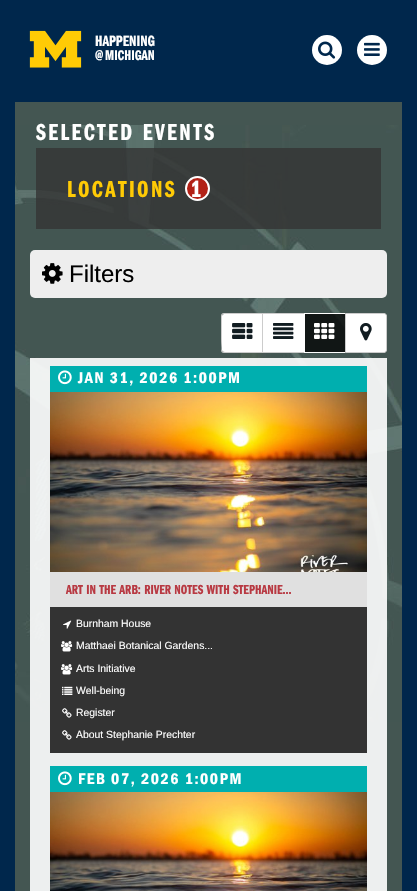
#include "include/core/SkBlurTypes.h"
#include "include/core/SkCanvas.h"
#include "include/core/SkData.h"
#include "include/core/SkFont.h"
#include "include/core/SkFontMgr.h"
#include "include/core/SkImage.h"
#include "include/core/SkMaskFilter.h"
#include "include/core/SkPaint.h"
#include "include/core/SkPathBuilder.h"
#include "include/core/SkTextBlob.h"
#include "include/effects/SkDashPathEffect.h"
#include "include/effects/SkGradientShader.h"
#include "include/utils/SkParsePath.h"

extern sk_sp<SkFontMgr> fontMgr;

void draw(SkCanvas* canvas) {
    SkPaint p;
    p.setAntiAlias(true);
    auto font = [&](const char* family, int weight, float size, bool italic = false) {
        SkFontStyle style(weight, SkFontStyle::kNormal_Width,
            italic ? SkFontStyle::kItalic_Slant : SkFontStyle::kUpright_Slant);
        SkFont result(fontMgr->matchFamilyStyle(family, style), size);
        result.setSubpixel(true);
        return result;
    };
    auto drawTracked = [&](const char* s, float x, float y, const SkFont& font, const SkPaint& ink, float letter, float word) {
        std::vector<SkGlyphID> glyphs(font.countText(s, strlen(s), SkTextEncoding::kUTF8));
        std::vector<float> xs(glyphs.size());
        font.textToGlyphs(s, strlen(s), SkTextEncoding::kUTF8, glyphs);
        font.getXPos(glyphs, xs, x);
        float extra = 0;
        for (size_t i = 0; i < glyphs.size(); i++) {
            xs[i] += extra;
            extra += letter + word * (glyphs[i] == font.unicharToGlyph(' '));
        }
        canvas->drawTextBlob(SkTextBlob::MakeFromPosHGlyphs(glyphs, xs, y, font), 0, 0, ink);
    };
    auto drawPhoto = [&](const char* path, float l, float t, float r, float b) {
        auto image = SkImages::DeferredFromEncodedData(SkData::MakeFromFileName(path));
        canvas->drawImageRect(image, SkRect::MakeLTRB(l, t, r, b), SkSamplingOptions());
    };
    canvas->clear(0xFF00274C);
    p.setColor(0xFF445652);
    canvas->drawRect(SkRect::MakeLTRB(15, 102, 402, 891), p);
    drawPhoto("media/1.png", 15, 125, 402, 722);
    drawPhoto("media/2.png", 29, 30, 82, 68);
    auto font1 = font("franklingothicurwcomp", 600, 15.5f);
    p.setColor(0xFFFFFFFF);
    canvas->drawString("HAPPENING", 95, 46, font1, p);
    auto font2 = font("franklingothicurwcomp", 600, 14.5f);
    canvas->drawString("@", 95, 60, font2, p);
    canvas->drawString("MICHIGAN", 105, 60, font2, p);
    canvas->drawCircle(327, 50, 15, p);
    drawPhoto("media/3.png", 318, 41, 336, 59);
    canvas->drawCircle(372, 50, 15, p);
    drawPhoto("media/4.png", 364, 42, 380, 56);
    auto font3 = font("franklingothicurwcomp", 600, 24);
    drawTracked("SELECTED EVENTS", 36, 140, font3, p, 2.4f, 0);
    p.setColor(0xCC333333);
    canvas->drawRect(SkRect::MakeLTRB(36, 148, 381, 229), p);
    p.setColor(0xFFFFCB05);
    drawTracked("LOCATIONS", 67, 197, font3, p, 2.4f, 0);
    p.setColor(0xFFB22116);
    canvas->drawCircle(197.5f, 188.5f, 11.5f, p);
    p.setStyle(SkPaint::kStroke_Style);
    p.setStrokeWidth(2);
    p.setColor(0xFFFFFFFF);
    canvas->drawCircle(197.5f, 188.5f, 11.5f, p);
    p.setStyle(SkPaint::kFill_Style);
    drawTracked("1", 191, 197, font3, p, 2.4f, 0);
    p.setColor(0xFFEEEEEE);
    canvas->drawRoundRect(SkRect::MakeLTRB(30, 250, 387, 298), 5, 5, p);
    drawPhoto("media/5.png", 42, 263, 63, 284);
    auto font4 = font("Liberation Sans", 400, 24);
    p.setColor(0xFF000000);
    canvas->drawString("Filters", 69, 282, font4, p);
    p.setColor(0xFFFFFFFF);
    canvas->drawPath(SkPathBuilder().moveTo(224, 314).lineTo(262, 314).lineTo(262, 352).lineTo(224, 352).cubicTo(223, 352, 222, 351, 222, 350).lineTo(222, 316).cubicTo(222, 315, 223, 314, 224, 314).close().detach(), p);
    p.setColor(0xFFCCCCCC);
    canvas->drawPath(SkPathBuilder(SkPathFillType::kEvenOdd).moveTo(224, 313).lineTo(262, 313).lineTo(262, 353).lineTo(224, 353).cubicTo(222, 353, 221, 352, 221, 350).lineTo(221, 316).cubicTo(221, 314, 222, 313, 224, 313).close().moveTo(224, 314).lineTo(262, 314).lineTo(262, 352).lineTo(230, 352).cubicTo(219, 352, 222, 352, 222, 339).lineTo(222, 315).close().detach(), p);
    drawPhoto("media/6.png", 232, 323, 253, 339);
    {
        const struct { float l, t, r, b; SkColor color; } items[] = {
            {263, 314, 304, 352, 0xFFFFFFFF},
            {262, 313, 304, 314, 0xFFCCCCCC},
            {262, 352, 304, 353, 0xFFCCCCCC},
            {262, 313, 263, 353, 0xFFCCCCCC},
        };
        for (auto [l, t, r, b, color] : items) {
            p.setColor(color);
            canvas->drawRect(SkRect::MakeLTRB(l, t, r, b), p);
        }
    }
    drawPhoto("media/7.png", 273, 323, 294, 339);
    {
        const struct { float l, t, r, b; SkColor color; } items[] = {
            {305, 314, 345, 352, 0xBF000000},
            {304, 313, 345, 314, 0xFFFFFFFF},
            {304, 352, 345, 353, 0xFFFFFFFF},
            {304, 313, 305, 353, 0xFFFFFFFF},
        };
        for (auto [l, t, r, b, color] : items) {
            p.setColor(color);
            canvas->drawRect(SkRect::MakeLTRB(l, t, r, b), p);
        }
    }
    drawPhoto("media/8.png", 314, 323, 335, 339);
    canvas->drawPath(SkPathBuilder().moveTo(345.5f, 313.5f).lineTo(384, 313.5f).cubicTo(385.5f, 313.5f, 386.5f, 314.5f, 386.5f, 316).lineTo(386.5f, 350).cubicTo(386.5f, 351.5f, 385.5f, 352.5f, 384, 352.5f).lineTo(345.5f, 352.5f).close().detach(), p);
    p.setStyle(SkPaint::kStroke_Style);
    p.setStrokeWidth(1);
    p.setColor(0xFFCCCCCC);
    canvas->drawPath(SkPathBuilder().moveTo(345.5f, 313.5f).lineTo(384, 313.5f).cubicTo(385.5f, 313.5f, 386.5f, 314.5f, 386.5f, 316).lineTo(386.5f, 350).cubicTo(386.5f, 351.5f, 385.5f, 352.5f, 384, 352.5f).lineTo(345.5f, 352.5f).close().detach(), p);
    drawPhoto("media/9.png", 360, 323, 372, 341);
    p.setStyle(SkPaint::kFill_Style);
    {
        const struct { float l, t, r, b; SkColor color; } items[] = {
            {30, 358, 387, 891, 0xE6FFFFFF},
            {50, 607, 367, 753, 0xFF333333},
            {50, 366, 367, 392, 0xFF00AFAF},
        };
        for (auto [l, t, r, b, color] : items) {
            p.setColor(color);
            canvas->drawRect(SkRect::MakeLTRB(l, t, r, b), p);
        }
    }
    drawPhoto("media/10.png", 58, 370, 72, 385);
    auto font5 = font("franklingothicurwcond", 400, 16);
    p.setColor(0xFFFFFFFF);
    drawTracked("JAN 31, 2026 1:00PM", 78, 383, font5, p, 1.6f, 0);
    drawPhoto("media/11.png", 50, 392, 367, 572);
    p.setColor(0xFFE0E0E0);
    canvas->drawRect(SkRect::MakeLTRB(50, 572, 367, 607), p);
    auto font6 = font("franklingothicurwcomp", 600, 13.6f);
    p.setColor(0xFFB83942);
    canvas->drawString("ART IN THE ARB: RIVER NOTES WITH STEPHANIE...", 66, 594, font6, p);
    drawPhoto("media/12.png", 63, 620, 72, 629);
    auto font7 = font("Liberation Sans", 400, 10.4f);
    p.setColor(0xFFFFFFFF);
    canvas->drawString("Burnham House", 76, 627, font7, p);
    drawPhoto("media/13.png", 61, 641, 73, 652);
    canvas->drawString("Matthaei Botanical Gardens...", 76, 649, font7, p);
    drawPhoto("media/13.png", 61, 664, 73, 675);
    canvas->drawString("Arts Initiative", 76, 672, font7, p);
    drawPhoto("media/14.png", 62, 686, 73, 695);
    canvas->drawString("Well-being", 76, 694, font7, p);
    drawPhoto("media/15.png", 62, 708, 72, 718);
    canvas->drawString("Register", 76, 716, font7, p);
    drawPhoto("media/15.png", 62, 730, 72, 740);
    canvas->drawString("About Stephanie Prechter", 76, 738, font7, p);
    p.setColor(0xFF00AFAF);
    canvas->drawRect(SkRect::MakeLTRB(50, 766, 367, 792), p);
    drawPhoto("media/10.png", 58, 771, 72, 786);
    p.setColor(0xFFFFFFFF);
    drawTracked("FEB 07, 2026 1:00PM", 78, 784, font5, p, 1.6f, 0);
    drawPhoto("media/16.png", 50, 792, 367, 891);
}
